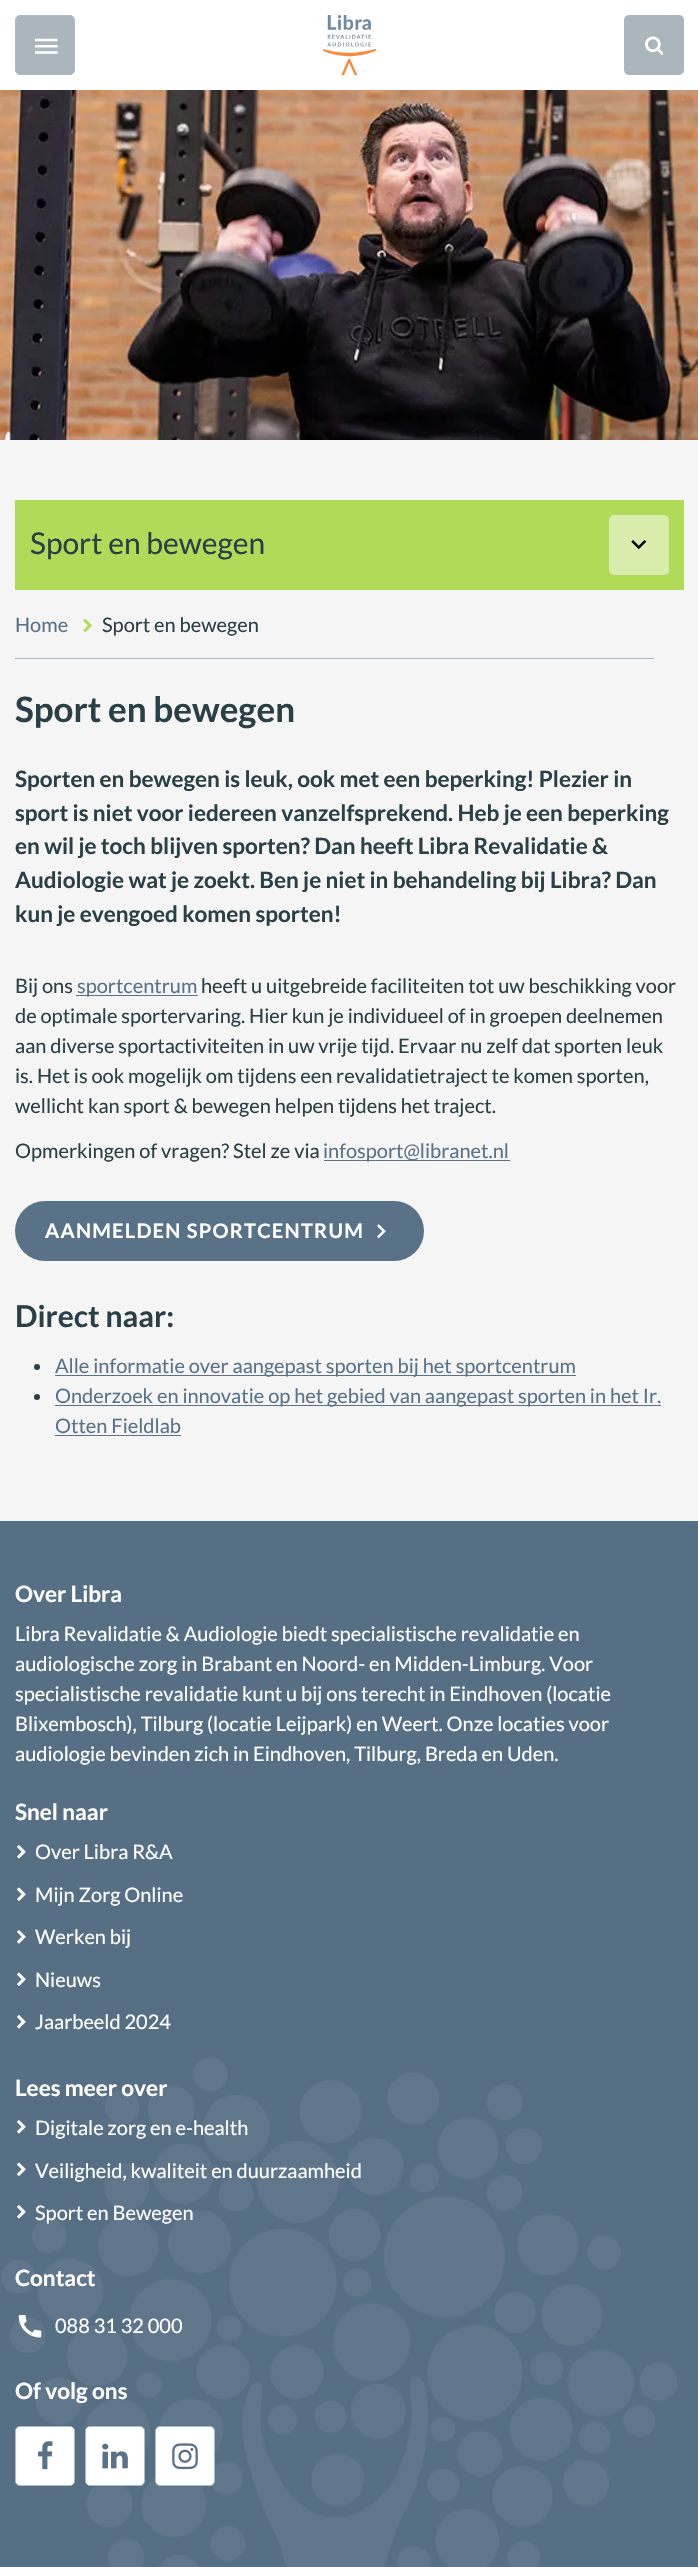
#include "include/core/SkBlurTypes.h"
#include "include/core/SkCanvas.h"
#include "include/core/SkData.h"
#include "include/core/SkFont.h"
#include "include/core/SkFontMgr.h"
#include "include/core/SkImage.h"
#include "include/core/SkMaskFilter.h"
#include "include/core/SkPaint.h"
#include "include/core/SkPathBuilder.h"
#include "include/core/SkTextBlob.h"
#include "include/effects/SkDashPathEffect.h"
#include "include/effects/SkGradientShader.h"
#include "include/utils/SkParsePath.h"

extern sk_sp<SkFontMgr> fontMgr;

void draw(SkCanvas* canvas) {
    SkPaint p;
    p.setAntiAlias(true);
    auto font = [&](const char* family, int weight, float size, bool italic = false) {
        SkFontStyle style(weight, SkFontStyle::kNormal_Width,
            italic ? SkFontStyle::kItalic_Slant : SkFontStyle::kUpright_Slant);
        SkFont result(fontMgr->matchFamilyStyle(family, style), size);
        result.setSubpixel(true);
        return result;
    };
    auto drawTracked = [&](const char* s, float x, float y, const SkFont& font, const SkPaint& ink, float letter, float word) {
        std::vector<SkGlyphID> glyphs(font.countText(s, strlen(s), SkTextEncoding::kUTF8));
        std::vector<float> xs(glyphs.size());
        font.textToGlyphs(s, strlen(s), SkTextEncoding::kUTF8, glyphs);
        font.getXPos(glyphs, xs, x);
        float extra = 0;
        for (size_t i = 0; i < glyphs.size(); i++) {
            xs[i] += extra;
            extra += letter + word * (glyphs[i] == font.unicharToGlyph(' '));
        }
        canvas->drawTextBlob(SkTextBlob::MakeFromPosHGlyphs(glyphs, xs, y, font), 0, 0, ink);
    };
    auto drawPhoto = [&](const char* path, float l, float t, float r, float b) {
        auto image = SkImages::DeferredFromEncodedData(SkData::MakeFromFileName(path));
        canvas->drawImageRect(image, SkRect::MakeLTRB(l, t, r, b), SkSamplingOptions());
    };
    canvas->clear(0xFFFFFFFF);
    p.setColor(0xFFAAB6BB);
    canvas->drawRoundRect(SkRect::MakeLTRB(15.5f, 15.5f, 74.5f, 74.5f), 4.5f, 4.5f, p);
    p.setStyle(SkPaint::kStroke_Style);
    p.setStrokeWidth(1);
    p.setColor(0xFFACBBC9);
    canvas->drawRoundRect(SkRect::MakeLTRB(15.5f, 15.5f, 74.5f, 74.5f), 4.5f, 4.5f, p);
    drawPhoto("media/1.png", 35, 38, 58, 54);
    drawPhoto("media/2.png", 323, 15, 376, 75);
    p.setStyle(SkPaint::kFill_Style);
    p.setColor(0xFFAAB6BB);
    canvas->drawRoundRect(SkRect::MakeLTRB(624, 15, 684, 75), 5, 5, p);
    drawPhoto("media/3.png", 645, 36, 663, 55);
    p.setColor(0xFFF5F5F5);
    canvas->drawRect(SkRect::MakeLTRB(0, 440, 698, 1521), p);
    drawPhoto("media/4.png", 0, 90, 698, 440);
    p.setColor(0xFFB1DA58);
    canvas->drawRect(SkRect::MakeLTRB(15, 500, 684, 590), p);
    auto font1 = font("Lato", 400, 30);
    p.setColor(0xFF2A3F46);
    canvas->drawString("Sport en bewegen", 30, 554, font1, p);
    p.setColor(0xFFD8EDAC);
    canvas->drawRoundRect(SkRect::MakeLTRB(609, 515, 669, 575), 5, 5, p);
    drawPhoto("media/5.png", 631, 540, 647, 550);
    p.setColor(0xFFACBBC9);
    canvas->drawRect(SkRect::MakeLTRB(15, 658, 654, 659), p);
    auto font2 = font("Lato", 400, 20);
    p.setColor(0xFF597288);
    canvas->drawString("Home", 15, 632, font2, p);
    drawPhoto("media/6.png", 83, 618, 92, 633);
    p.setColor(0xFF2A3F46);
    canvas->drawString("Sport en bewegen", 102, 632, font2, p);
    auto font3 = font("Lato", 700, 35);
    canvas->drawString("Sport en bewegen", 15, 722, font3, p);
    auto font4 = font("Lato", 700, 22.5f);
    {
        const struct { const char* s; float x, y; } items[] = {
            {"Sporten en bewegen is leuk, ook met een beperking! Plezier in", 15, 787},
            {"sport is niet voor iedereen vanzelfsprekend. Heb je een beperking", 15, 821},
            {"en wil je toch blijven sporten? Dan heeft Libra Revalidatie &", 15, 854},
            {"Audiologie wat je zoekt. Ben je niet in behandeling bij Libra? Dan", 15, 888},
            {"kun je evengoed komen sporten!", 15, 922},
        };
        for (auto [s, x, y] : items) {
            canvas->drawString(s, x, y, font4, p);
        }
    }
    canvas->drawString("Bij ons", 15, 993, font2, p);
    p.setColor(0xFF597288);
    canvas->drawRect(SkRect::MakeLTRB(76, 995, 198, 996), p);
    canvas->drawString("sportcentrum", 77, 993, font2, p);
    p.setColor(0xFF2A3F46);
    {
        const struct { const char* s; float x, y; } items[] = {
            {"heeft u uitgebreide faciliteiten tot uw beschikking voor", 201, 993},
            {"de optimale sportervaring. Hier kun je individueel of in groepen deelnemen", 15, 1023},
            {"aan diverse sportactiviteiten in uw vrije tijd. Ervaar nu zelf dat sporten leuk", 15, 1053},
            {"is. Het is ook mogelijk om tijdens een revalidatietraject te komen sporten,", 15, 1083},
            {"wellicht kan sport & bewegen helpen tijdens het traject.", 15, 1113},
            {"Opmerkingen of vragen? Stel ze via", 15, 1158},
        };
        for (auto [s, x, y] : items) {
            canvas->drawString(s, x, y, font2, p);
        }
    }
    p.setColor(0xFF597288);
    canvas->drawRect(SkRect::MakeLTRB(324, 1160, 510, 1161), p);
    canvas->drawString("infosport@libranet.nl", 323, 1158, font2, p);
    canvas->drawRoundRect(SkRect::MakeLTRB(15, 1201, 424, 1261), 30, 30, p);
    auto font5 = font("Lato", 700, 20);
    p.setColor(0xFFFFFFFF);
    drawTracked("AANMELDEN SPORTCENTRUM", 45, 1238, font5, p, 1.25f, 0);
    drawPhoto("media/7.png", 377, 1224, 386, 1239);
    auto font6 = font("Lato", 700, 30);
    p.setColor(0xFF2A3F46);
    canvas->drawString("Direct naar:", 15, 1327, font6, p);
    canvas->drawCircle(37, 1367, 3, p);
    p.setColor(0xFF597288);
    canvas->drawRect(SkRect::MakeLTRB(55, 1375, 576, 1376), p);
    canvas->drawString("Alle informatie over aangepast sporten bij het sportcentrum", 55, 1373, font2, p);
    p.setColor(0xFF2A3F46);
    canvas->drawCircle(37, 1397, 3, p);
    p.setColor(0xFF597288);
    canvas->drawRect(SkRect::MakeLTRB(55, 1405, 661, 1406), p);
    canvas->drawString("Onderzoek en innovatie op het gebied van aangepast sporten in het Ir.", 55, 1403, font2, p);
    canvas->drawString("Otten Fieldlab", 55, 1433, font2, p);
    canvas->drawRect(SkRect::MakeLTRB(55, 1435, 181, 1436), p);
    p.setColor(0xFF576F85);
    canvas->drawRect(SkRect::MakeLTRB(0, 1521, 698, 2567), p);
    drawPhoto("media/8.png", 1, 2058, 677, 2567);
    p.setColor(0xFFFFFFFF);
    canvas->drawString("Over Libra", 15, 1602, font4, p);
    {
        const struct { const char* s; float x, y; } items[] = {
            {"Libra Revalidatie & Audiologie biedt specialistische revalidatie en", 15, 1641},
            {"audiologische zorg in Brabant en Noord- en Midden-Limburg. Voor", 15, 1671},
            {"specialistische revalidatie kunt u bij ons terecht in Eindhoven (locatie", 15, 1701},
            {"Blixembosch), Tilburg (locatie Leijpark) en Weert. Onze locaties voor", 15, 1731},
            {"audiologie bevinden zich in Eindhoven, Tilburg, Breda en Uden.", 15, 1761},
        };
        for (auto [s, x, y] : items) {
            canvas->drawString(s, x, y, font2, p);
        }
    }
    canvas->drawString("Snel naar", 15, 1820, font4, p);
    drawPhoto("media/9.png", 17, 1845, 26, 1859);
    canvas->drawString("Over Libra R&A", 35, 1859, font2, p);
    drawPhoto("media/10.png", 17, 1887, 26, 1901);
    canvas->drawString("Mijn Zorg Online", 35, 1902, font2, p);
    drawPhoto("media/9.png", 17, 1930, 26, 1944);
    canvas->drawString("Werken bij", 35, 1944, font2, p);
    drawPhoto("media/10.png", 17, 1972, 26, 1986);
    canvas->drawString("Nieuws", 35, 1987, font2, p);
    drawPhoto("media/9.png", 17, 2015, 26, 2029);
    canvas->drawString("Jaarbeeld 2024", 35, 2029, font2, p);
    canvas->drawString("Lees meer over", 15, 2096, font4, p);
    drawPhoto("media/9.png", 17, 2120, 26, 2134);
    canvas->drawString("Digitale zorg en e-health", 35, 2135, font2, p);
    drawPhoto("media/10.png", 17, 2162, 26, 2176);
    canvas->drawString("Veiligheid, kwaliteit en duurzaamheid", 35, 2178, font2, p);
    drawPhoto("media/9.png", 17, 2205, 26, 2219);
    canvas->drawString("Sport en Bewegen", 35, 2220, font2, p);
    canvas->drawString("Contact", 15, 2286, font4, p);
    drawPhoto("media/11.png", 18, 2315, 42, 2338);
    canvas->drawString("088 31 32 000", 55, 2333, font2, p);
    canvas->drawString("Of volg ons", 15, 2399, font4, p);
    canvas->drawRoundRect(SkRect::MakeLTRB(15.5f, 2426.5f, 74.5f, 2485.5f), 4.5f, 4.5f, p);
    p.setStyle(SkPaint::kStroke_Style);
    p.setColor(0xFFACBBC9);
    canvas->drawRoundRect(SkRect::MakeLTRB(15.5f, 2426.5f, 74.5f, 2485.5f), 4.5f, 4.5f, p);
    drawPhoto("media/12.png", 38, 2441, 53, 2470);
    p.setStyle(SkPaint::kFill_Style);
    p.setColor(0xFFFFFFFF);
    canvas->drawRoundRect(SkRect::MakeLTRB(85.5f, 2426.5f, 144.5f, 2485.5f), 4.5f, 4.5f, p);
    p.setStyle(SkPaint::kStroke_Style);
    p.setColor(0xFFACBBC9);
    canvas->drawRoundRect(SkRect::MakeLTRB(85.5f, 2426.5f, 144.5f, 2485.5f), 4.5f, 4.5f, p);
    drawPhoto("media/13.png", 102, 2443, 128, 2469);
    p.setStyle(SkPaint::kFill_Style);
    p.setColor(0xFFFFFFFF);
    canvas->drawRoundRect(SkRect::MakeLTRB(155.5f, 2426.5f, 214.5f, 2485.5f), 4.5f, 4.5f, p);
    p.setStyle(SkPaint::kStroke_Style);
    p.setColor(0xFFACBBC9);
    canvas->drawRoundRect(SkRect::MakeLTRB(155.5f, 2426.5f, 214.5f, 2485.5f), 4.5f, 4.5f, p);
    drawPhoto("media/14.png", 172, 2443, 198, 2470);
}
